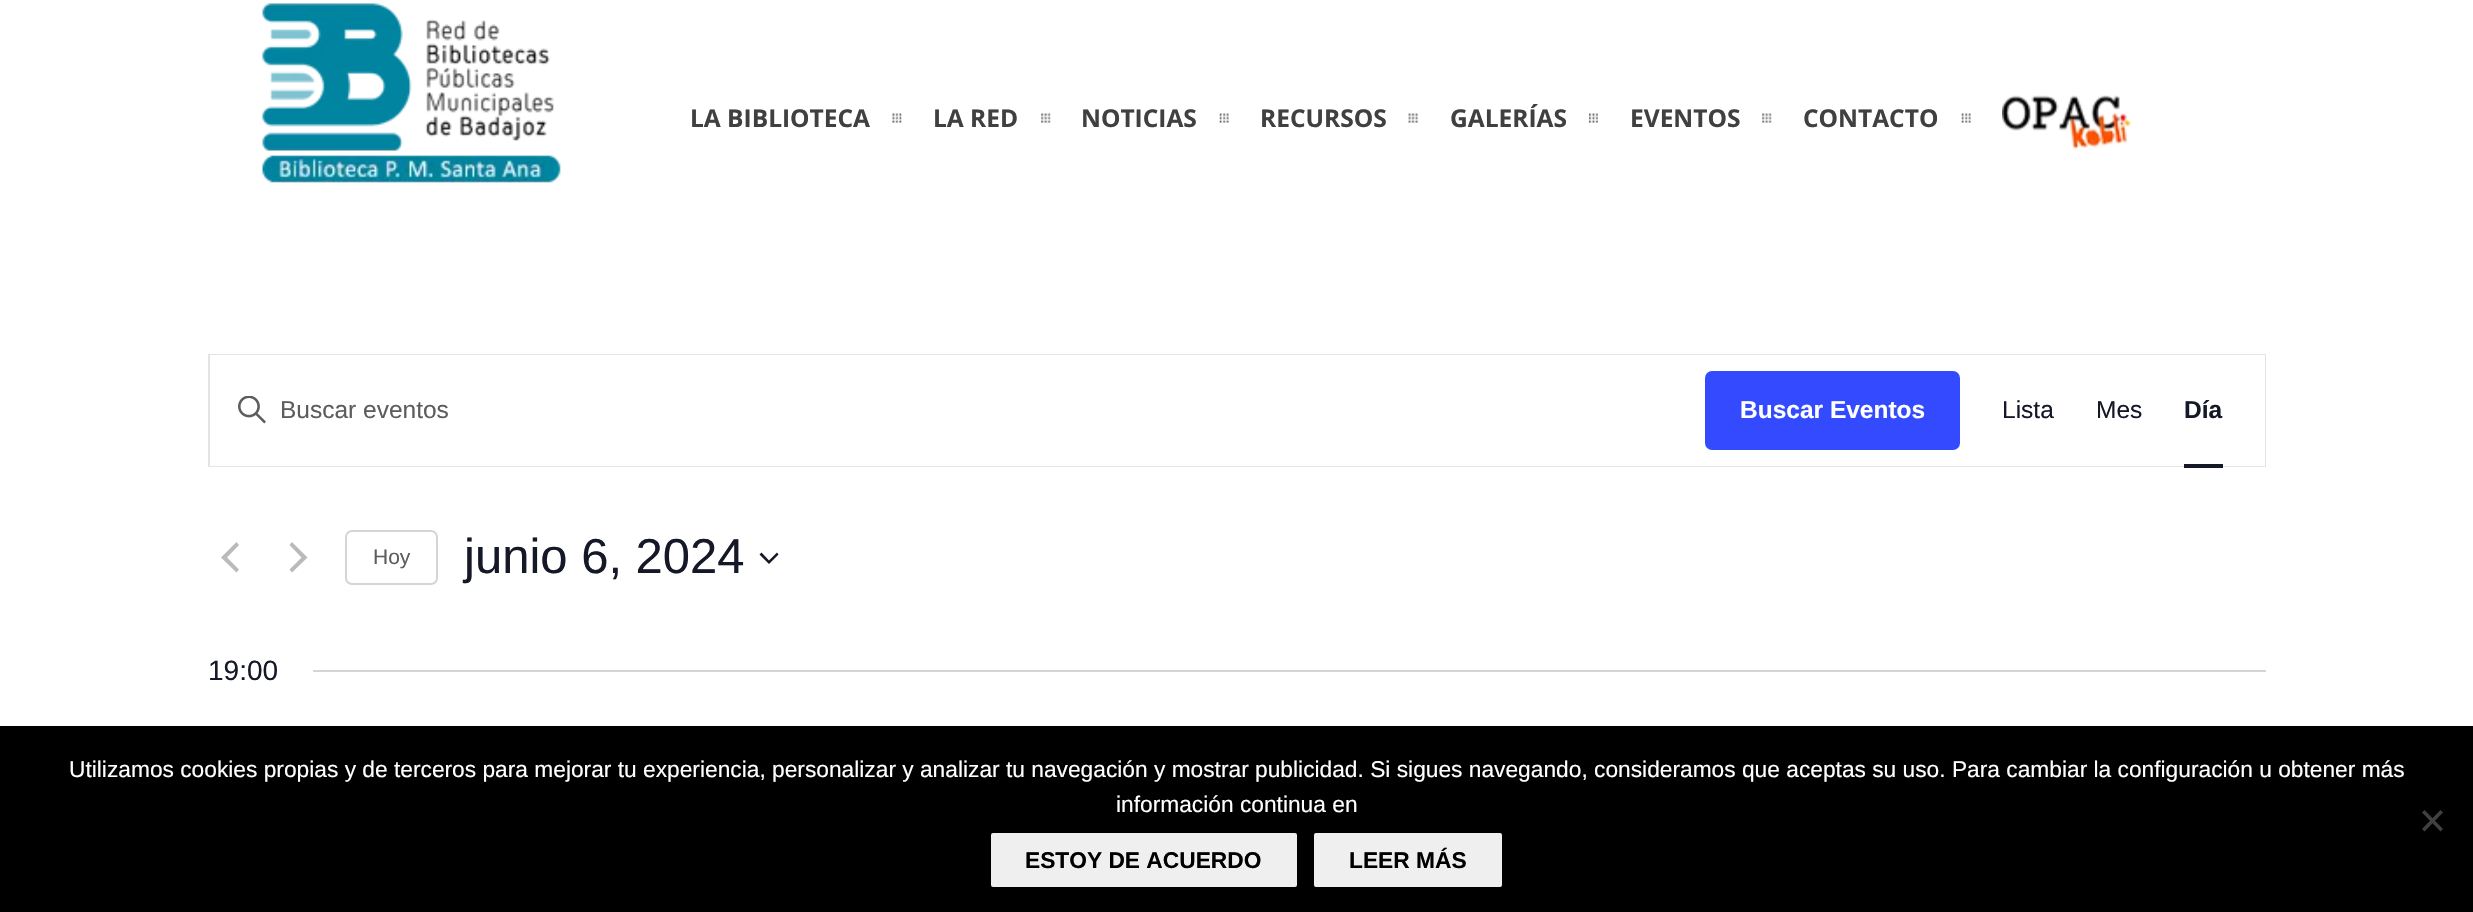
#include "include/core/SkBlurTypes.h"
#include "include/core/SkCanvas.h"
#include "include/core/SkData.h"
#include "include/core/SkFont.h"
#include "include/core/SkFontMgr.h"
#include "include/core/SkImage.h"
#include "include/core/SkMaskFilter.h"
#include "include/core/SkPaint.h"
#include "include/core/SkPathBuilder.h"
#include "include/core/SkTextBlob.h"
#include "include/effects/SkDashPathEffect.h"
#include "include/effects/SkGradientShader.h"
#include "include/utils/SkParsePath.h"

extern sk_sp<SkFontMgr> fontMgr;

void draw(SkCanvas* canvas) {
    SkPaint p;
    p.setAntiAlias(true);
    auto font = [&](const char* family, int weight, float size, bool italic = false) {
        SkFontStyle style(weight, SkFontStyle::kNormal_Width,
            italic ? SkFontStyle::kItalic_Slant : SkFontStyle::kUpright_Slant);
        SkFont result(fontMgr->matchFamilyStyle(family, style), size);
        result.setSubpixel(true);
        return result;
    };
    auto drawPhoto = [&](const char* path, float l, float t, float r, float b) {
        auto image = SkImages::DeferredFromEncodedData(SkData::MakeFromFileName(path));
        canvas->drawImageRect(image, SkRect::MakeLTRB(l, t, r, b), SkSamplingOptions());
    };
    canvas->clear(0xFFFFFFFF);
    drawPhoto("media/1.png", 262, 3, 561, 183);
    drawPhoto("media/2.png", 892, 113, 902, 123);
    auto font1 = font("Open Sans", 700, 24.5f);
    p.setColor(0xFF404040);
    canvas->drawString("LA BIBLIOTECA", 690, 127, font1, p);
    drawPhoto("media/3.png", 1041, 113, 1051, 123);
    canvas->drawString("LA RED", 933, 127, font1, p);
    drawPhoto("media/4.png", 1219, 113, 1229, 123);
    canvas->drawString("NOTICIAS", 1081, 127, font1, p);
    drawPhoto("media/5.png", 1408, 113, 1419, 123);
    canvas->drawString("RECURSOS", 1260, 127, font1, p);
    drawPhoto("media/6.png", 1589, 113, 1598, 123);
    canvas->drawString("GALERÍAS", 1450, 127, font1, p);
    drawPhoto("media/7.png", 1762, 113, 1772, 123);
    canvas->drawString("EVENTOS", 1630, 127, font1, p);
    drawPhoto("media/4.png", 1961, 113, 1971, 123);
    canvas->drawString("CONTACTO", 1803, 127, font1, p);
    drawPhoto("media/8.png", 2002, 95, 2132, 150);
    p.setStyle(SkPaint::kStroke_Style);
    p.setStrokeWidth(2);
    p.setColor(0xFFE4E4E4);
    canvas->drawRect(SkRect::MakeLTRB(209, 355, 2265, 466), p);
    p.setStyle(SkPaint::kFill_Style);
    p.setColor(0xFFFFFFFF);
    canvas->drawRect(SkRect::MakeLTRB(210, 355, 2265, 466), p);
    drawPhoto("media/9.png", 238, 396, 266, 424);
    auto font2 = font("Liberation Sans", 400, 24.5f);
    p.setColor(0xFF5D5D5D);
    canvas->drawString("Buscar eventos", 280, 418, font2, p);
    p.setColor(0xFF334AFF);
    canvas->drawRoundRect(SkRect::MakeLTRB(1705, 371, 1960, 450), 7, 7, p);
    auto font3 = font("Liberation Sans", 700, 24.5f);
    p.setColor(0xFFFFFFFF);
    canvas->drawString("Buscar Eventos", 1740, 418, font3, p);
    p.setColor(0xFF141827);
    canvas->drawString("Lista", 2002, 418, font2, p);
    canvas->drawString("Mes", 2096, 418, font2, p);
    canvas->drawString("Día", 2184, 418, font3, p);
    canvas->drawRect(SkRect::MakeLTRB(2184, 464, 2223, 468), p);
    p.setColor(0xFFBABABA);
    canvas->drawPath(SkPathBuilder().moveTo(239, 569.5f).lineTo(236.5f, 572.5f).lineTo(221, 557.5f).lineTo(236.5f, 542).lineTo(239, 545).lineTo(227, 557.5f).close().detach(), p);
    canvas->drawPath(SkPathBuilder().moveTo(289.5f, 545).lineTo(292, 542).lineTo(307.5f, 557.5f).lineTo(292, 572.5f).lineTo(289.5f, 569.5f).lineTo(301.5f, 557.5f).close().detach(), p);
    p.setStyle(SkPaint::kStroke_Style);
    p.setColor(0xFFD5D5D5);
    canvas->drawRoundRect(SkRect::MakeLTRB(346, 531, 437, 584), 6, 6, p);
    auto font4 = font("Liberation Sans", 400, 21);
    p.setStyle(SkPaint::kFill_Style);
    p.setColor(0xFF5D5D5D);
    canvas->drawString("Hoy", 373, 564, font4, p);
    auto font5 = font("Liberation Sans", 400, 49);
    p.setColor(0xFF141827);
    canvas->drawString("junio 6, 2024", 464, 573, font5, p);
    canvas->drawPath(SkPathBuilder(SkPathFillType::kEvenOdd).moveTo(761.5f, 552.5f).lineTo(769, 560.5f).lineTo(777, 552.5f).lineTo(778.5f, 554.5f).lineTo(769, 564).lineTo(759.5f, 554.5f).close().detach(), p);
    auto font6 = font("Liberation Sans", 400, 28);
    canvas->drawString("19:00", 208, 680, font6, p);
    p.setColor(0xFFD5D5D5);
    canvas->drawRect(SkRect::MakeLTRB(313, 670, 2266, 672), p);
    p.setColor(0xFF000000);
    canvas->drawRect(SkRect::MakeLTRB(0, 726, 2473, 912), p);
    auto font7 = font("Liberation Sans", 400, 22.75f);
    p.setColor(0xFFFFFFFF);
    canvas->drawString("Utilizamos cookies propias y de terceros para mejorar tu experiencia, personalizar y analizar tu navegación y mostrar publicidad. Si sigues navegando, consideramos que aceptas su uso. Para cambiar la configuración u obtener más", 69, 777, font7, p);
    canvas->drawString("información continua en", 1116, 812, font7, p);
    p.setColor(0xFF404040);
    canvas->drawPath(SkPathBuilder().moveTo(2440.5f, 810).lineTo(2443, 812.5f).lineTo(2424.5f, 831.5f).lineTo(2422, 829).close().detach(), p);
    canvas->drawPath(SkPathBuilder().moveTo(2422, 812.5f).lineTo(2424.5f, 810).lineTo(2443, 829).lineTo(2440.5f, 831.5f).close().detach(), p);
    p.setColor(0xFFEFEFEF);
    canvas->drawRoundRect(SkRect::MakeLTRB(991, 833, 1297, 887), 2, 2, p);
    auto font8 = font("Liberation Sans", 700, 22.75f);
    p.setColor(0xFF000000);
    canvas->drawString("ESTOY DE ACUERDO", 1025, 868, font8, p);
    p.setColor(0xFFEFEFEF);
    canvas->drawRoundRect(SkRect::MakeLTRB(1314, 833, 1502, 887), 2, 2, p);
    p.setColor(0xFF000000);
    canvas->drawString("LEER MÁS", 1349, 868, font8, p);
}
